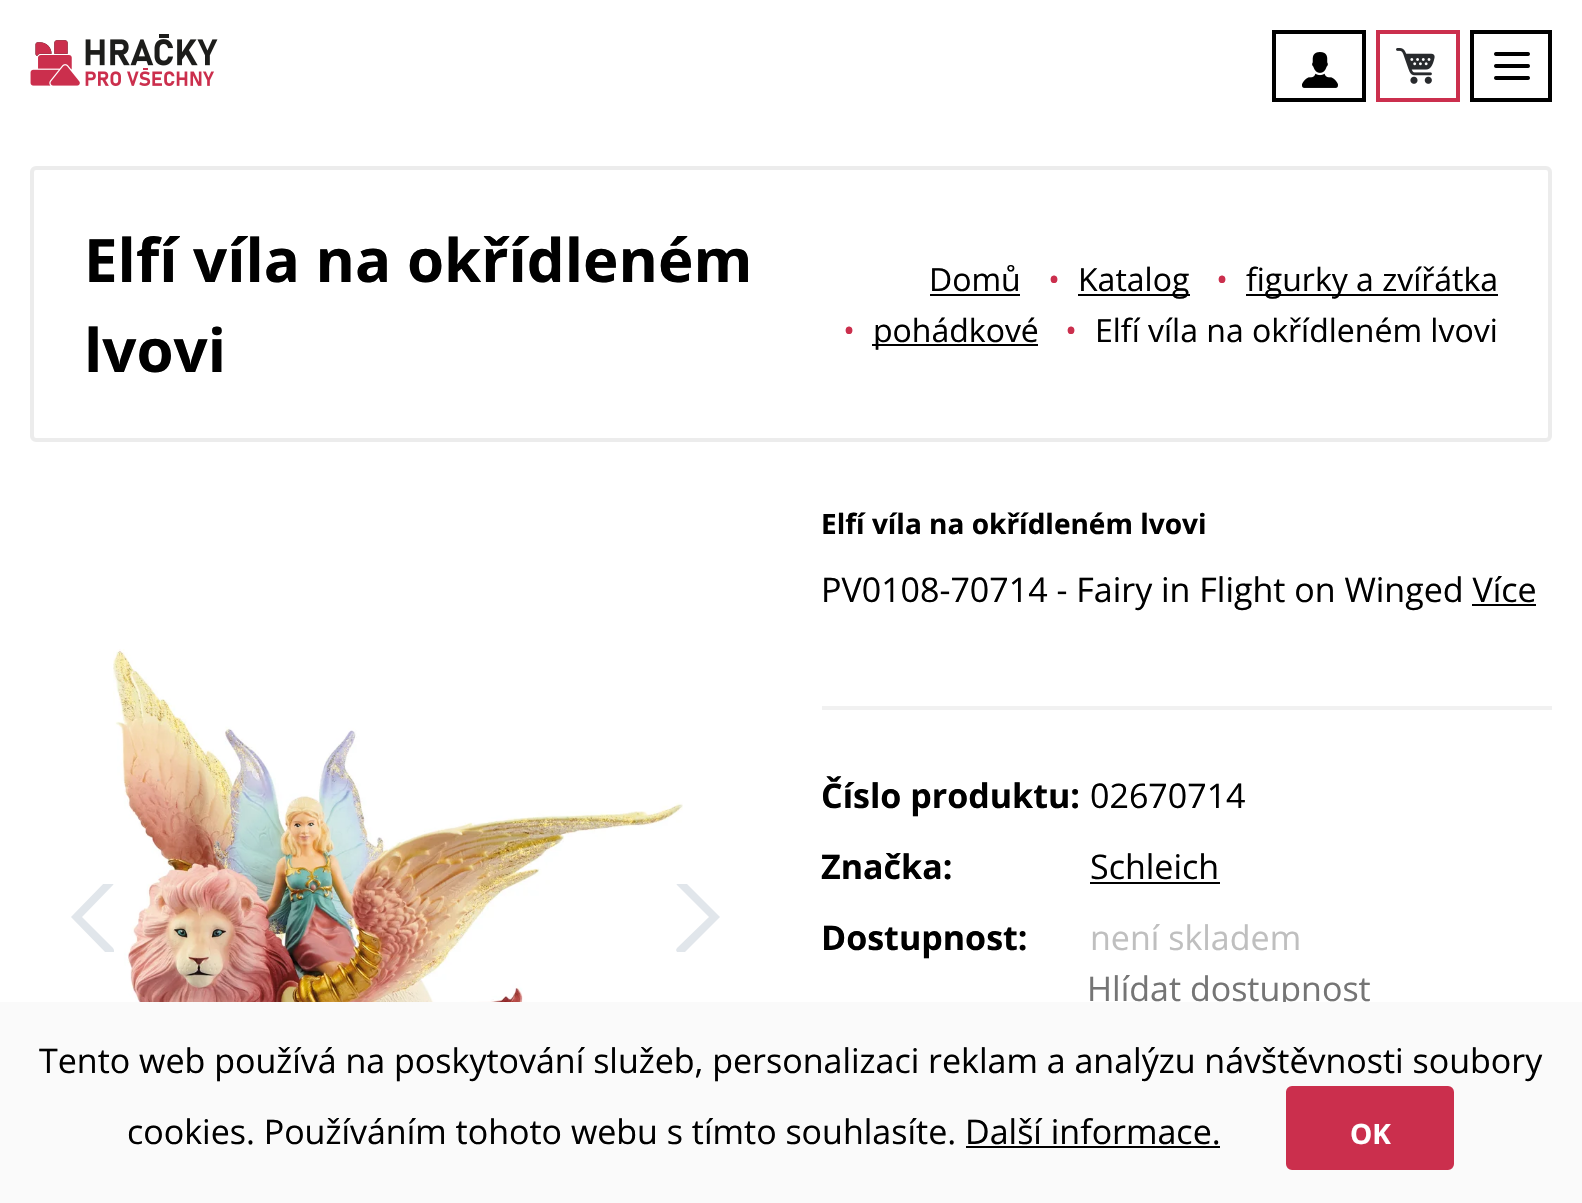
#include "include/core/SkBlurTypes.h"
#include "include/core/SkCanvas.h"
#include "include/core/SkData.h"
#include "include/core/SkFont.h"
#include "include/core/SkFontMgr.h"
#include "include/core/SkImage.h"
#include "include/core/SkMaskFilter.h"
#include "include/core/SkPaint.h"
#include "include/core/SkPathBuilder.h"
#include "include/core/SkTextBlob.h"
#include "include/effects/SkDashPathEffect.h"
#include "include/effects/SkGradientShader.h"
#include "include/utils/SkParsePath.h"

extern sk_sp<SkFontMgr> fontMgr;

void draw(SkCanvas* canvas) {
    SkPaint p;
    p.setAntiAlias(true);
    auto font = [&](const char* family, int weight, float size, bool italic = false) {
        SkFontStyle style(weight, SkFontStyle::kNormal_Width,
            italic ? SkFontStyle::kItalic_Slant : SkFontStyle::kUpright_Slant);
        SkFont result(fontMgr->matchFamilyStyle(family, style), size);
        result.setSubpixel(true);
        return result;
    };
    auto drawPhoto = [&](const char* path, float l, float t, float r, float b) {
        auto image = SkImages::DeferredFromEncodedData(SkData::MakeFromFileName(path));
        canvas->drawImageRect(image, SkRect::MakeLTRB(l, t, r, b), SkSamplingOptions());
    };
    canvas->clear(0xFFFFFFFF);
    drawPhoto("media/1.png", 30, 34, 218, 86);
    p.setStyle(SkPaint::kStroke_Style);
    p.setStrokeWidth(4);
    p.setColor(0xFF000000);
    canvas->drawRect(SkRect::MakeLTRB(1274, 32, 1364, 100), p);
    drawPhoto("media/2.png", 1302, 52, 1338, 88);
    p.setColor(0xFFCB2F4D);
    canvas->drawRect(SkRect::MakeLTRB(1378, 32, 1458, 100), p);
    drawPhoto("media/3.png", 1396, 48, 1435, 84);
    drawPhoto("media/4.png", 1494, 52, 1530, 80);
    p.setColor(0xFF000000);
    canvas->drawRect(SkRect::MakeLTRB(1472, 32, 1550, 100), p);
    p.setColor(0xFFECECEC);
    canvas->drawRoundRect(SkRect::MakeLTRB(32, 168, 1550, 440), 4, 4, p);
    auto font1 = font("Open Sans", 700, 60);
    p.setStyle(SkPaint::kFill_Style);
    p.setColor(0xFF000000);
    canvas->drawString("Elfí víla na okřídleném", 84, 282, font1, p);
    canvas->drawString("lvovi", 84, 372, font1, p);
    auto font2 = font("Open Sans", 400, 32);
    canvas->drawString("Domů", 929, 291, font2, p);
    canvas->drawRect(SkRect::MakeLTRB(930, 294, 1020, 296), p);
    p.setColor(0xFFCB2F4D);
    canvas->drawString("•", 1048, 291, font2, p);
    p.setColor(0xFF000000);
    canvas->drawRect(SkRect::MakeLTRB(1078, 294, 1190, 296), p);
    canvas->drawString("Katalog", 1078, 291, font2, p);
    p.setColor(0xFFCB2F4D);
    canvas->drawString("•", 1216, 291, font2, p);
    p.setColor(0xFF000000);
    canvas->drawRect(SkRect::MakeLTRB(1246, 294, 1498, 296), p);
    canvas->drawString("figurky a zvířátka", 1246, 291, font2, p);
    p.setColor(0xFFCB2F4D);
    canvas->drawString("•", 843, 342, font2, p);
    p.setColor(0xFF000000);
    canvas->drawRect(SkRect::MakeLTRB(872, 344, 1038, 346), p);
    canvas->drawString("pohádkové", 873, 342, font2, p);
    p.setColor(0xFFCB2F4D);
    canvas->drawString("•", 1065, 342, font2, p);
    p.setColor(0xFF000000);
    canvas->drawString("Elfí víla na okřídleném lvovi", 1095, 342, font2, p);
    drawPhoto("media/5.png", 113, 649, 683, 1002);
    canvas->save();
    canvas->clipRect(SkRect::MakeLTRB(60, 884, 128, 952));
    p.setColor(0xFFE1E6EB);
    canvas->drawPath(SkPathBuilder(SkPathFillType::kEvenOdd).moveTo(111, 879).lineTo(113, 879).lineTo(114, 881).lineTo(114, 883).lineTo(113, 885).lineTo(82, 917).lineTo(113, 948).lineTo(114, 950).lineTo(114, 952).lineTo(112, 954).lineTo(110, 955).lineTo(107, 954).lineTo(71, 917).lineTo(107, 880).lineTo(109, 879).close().detach(), p);
    canvas->restore();
    canvas->save();
    canvas->clipRect(SkRect::MakeLTRB(664, 884, 732, 952));
    canvas->drawPath(SkPathBuilder(SkPathFillType::kEvenOdd).moveTo(681, 879).lineTo(683, 880).lineTo(720, 917).lineTo(683, 954).lineTo(680, 955).lineTo(678, 954).lineTo(677, 952).lineTo(676, 950).lineTo(677, 948).lineTo(709, 917).lineTo(677, 885).lineTo(676, 883).lineTo(677, 881).lineTo(678, 879).close().detach(), p);
    canvas->restore();
    p.setColor(0xFFF1F1F1);
    canvas->drawRect(SkRect::MakeLTRB(822, 706, 1552, 710), p);
    auto font3 = font("Open Sans", 700, 28);
    p.setColor(0xFF000000);
    canvas->drawString("Elfí víla na okřídleném lvovi", 821, 534, font3, p);
    auto font4 = font("Open Sans", 400, 34);
    canvas->drawString("PV0108-70714 - Fairy in Flight on Winged Více", 821, 602, font4, p);
    canvas->drawRect(SkRect::MakeLTRB(1472, 604, 1536, 606), p);
    auto font5 = font("Open Sans", 700, 34);
    canvas->drawString("Číslo produktu:", 821, 808, font5, p);
    canvas->drawString("02670714", 1090, 808, font4, p);
    canvas->drawString("Značka:", 821, 879, font5, p);
    canvas->drawString("Schleich", 1090, 879, font4, p);
    canvas->drawRect(SkRect::MakeLTRB(1090, 882, 1220, 884), p);
    canvas->drawString("Dostupnost:", 821, 950, font5, p);
    p.setColor(0xFFBFBFBF);
    canvas->drawString("není skladem", 1090, 950, font4, p);
    p.setColor(0xFF757575);
    canvas->drawString("Hlídat dostupnost", 1087, 1001, font4, p);
    p.setColor(0xFFFAFAFA);
    canvas->drawRect(SkRect::MakeLTRB(0, 1002, 1582, 1203), p);
    p.setColor(0xFF000000);
    canvas->drawString("Tento web používá na poskytování služeb, personalizaci reklam a analýzu návštěvnosti soubory", 39, 1073, font4, p);
    canvas->drawString("cookies. Používáním tohoto webu s tímto souhlasíte. Další informace.", 127, 1144, font4, p);
    p.setColor(0xFFCB2F4D);
    canvas->drawRoundRect(SkRect::MakeLTRB(1288, 1088, 1452, 1168), 4, 4, p);
    p.setStyle(SkPaint::kStroke_Style);
    canvas->drawRoundRect(SkRect::MakeLTRB(1288, 1088, 1452, 1168), 4, 4, p);
    p.setStyle(SkPaint::kFill_Style);
    p.setColor(0xFFFFFFFF);
    canvas->drawString("OK", 1350, 1144, font3, p);
    p.setColor(0xFF000000);
    canvas->drawRect(SkRect::MakeLTRB(966, 1146, 1220, 1148), p);
}
